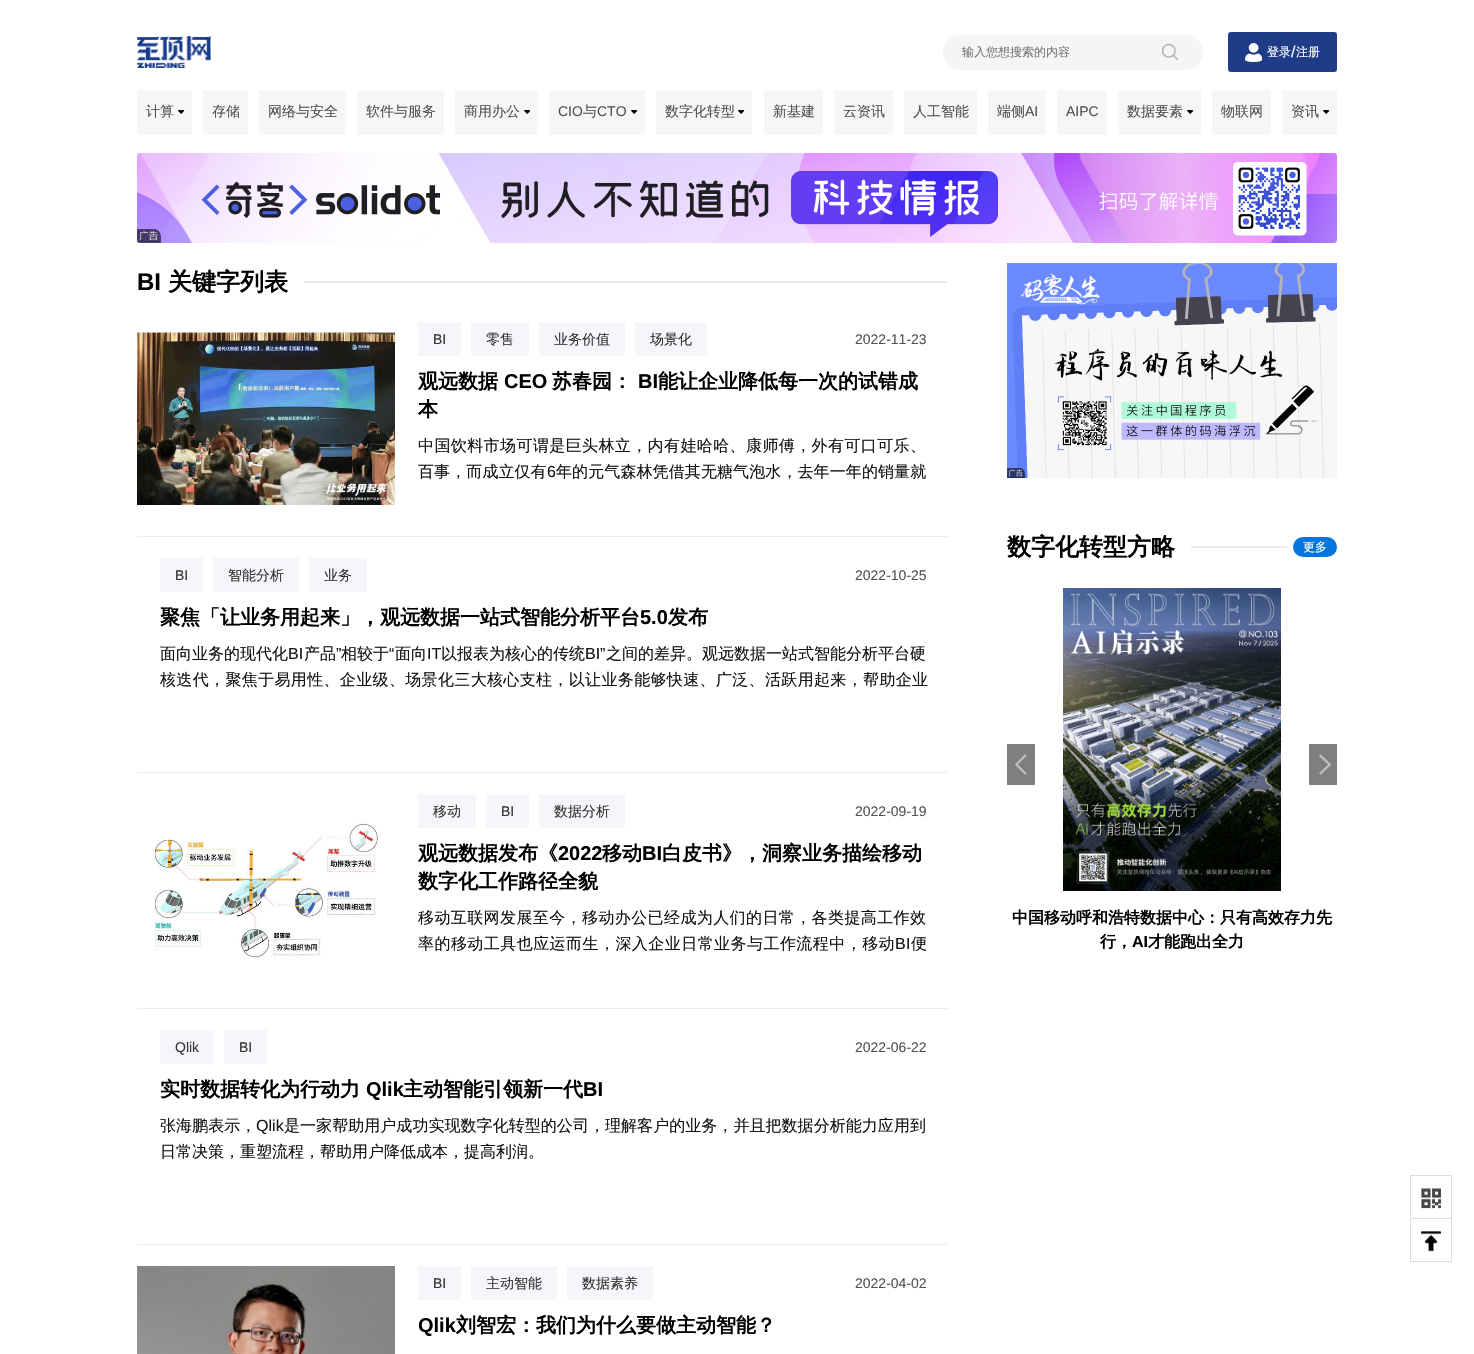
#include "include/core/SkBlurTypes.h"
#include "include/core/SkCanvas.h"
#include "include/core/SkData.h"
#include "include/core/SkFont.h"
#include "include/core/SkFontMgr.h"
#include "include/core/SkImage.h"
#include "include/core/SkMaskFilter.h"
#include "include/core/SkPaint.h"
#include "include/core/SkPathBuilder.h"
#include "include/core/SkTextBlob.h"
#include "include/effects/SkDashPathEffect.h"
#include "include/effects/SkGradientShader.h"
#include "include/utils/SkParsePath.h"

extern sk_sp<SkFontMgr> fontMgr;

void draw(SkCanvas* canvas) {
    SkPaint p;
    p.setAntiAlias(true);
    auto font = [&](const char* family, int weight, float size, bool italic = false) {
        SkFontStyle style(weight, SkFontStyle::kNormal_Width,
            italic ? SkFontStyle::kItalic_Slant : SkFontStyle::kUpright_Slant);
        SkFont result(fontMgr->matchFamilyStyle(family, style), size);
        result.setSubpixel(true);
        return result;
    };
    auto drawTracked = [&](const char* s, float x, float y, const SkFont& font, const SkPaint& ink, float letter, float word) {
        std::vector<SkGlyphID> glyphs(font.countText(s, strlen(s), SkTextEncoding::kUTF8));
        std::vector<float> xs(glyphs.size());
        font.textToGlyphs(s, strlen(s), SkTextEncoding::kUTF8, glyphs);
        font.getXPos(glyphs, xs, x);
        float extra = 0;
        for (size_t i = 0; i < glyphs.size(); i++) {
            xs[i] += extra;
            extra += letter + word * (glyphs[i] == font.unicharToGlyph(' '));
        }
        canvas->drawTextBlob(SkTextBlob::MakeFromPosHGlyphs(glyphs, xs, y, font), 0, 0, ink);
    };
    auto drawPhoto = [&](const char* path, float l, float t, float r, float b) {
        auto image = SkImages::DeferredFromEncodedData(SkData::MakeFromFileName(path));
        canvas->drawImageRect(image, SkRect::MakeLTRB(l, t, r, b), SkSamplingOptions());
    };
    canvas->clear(0xFFFFFFFF);
    drawPhoto("media/1.png", 137, 36, 211, 68);
    p.setColor(0xFFF5F5F5);
    canvas->drawRoundRect(SkRect::MakeLTRB(943, 35, 1203, 70), 17.5f, 17.5f, p);
    auto font1 = font("WenQuanYi Zen Hei", 500, 12);
    p.setColor(0xFF757575);
    canvas->drawString("输入您想搜索的内容", 962, 56, font1, p);
    drawPhoto("media/2.png", 1162, 44, 1178, 60);
    p.setColor(0xFF1E3C87);
    canvas->drawRoundRect(SkRect::MakeLTRB(1228, 32, 1337, 72), 3, 3, p);
    drawPhoto("media/3.png", 1245, 43, 1262, 62);
    p.setColor(0xFFFFFFFF);
    canvas->drawString("登录", 1267, 56, font1, p);
    auto font2 = font("Liberation Sans", 400, 16);
    canvas->drawString("/", 1291, 57, font2, p);
    canvas->drawString("注册", 1296, 56, font1, p);
    p.setColor(0xFFF6F6F6);
    canvas->drawRoundRect(SkRect::MakeLTRB(137, 90, 192, 135), 3, 3, p);
    auto font3 = font("WenQuanYi Zen Hei", 500, 14);
    p.setColor(0xFF525252);
    canvas->drawString("计算", 146, 116, font3, p);
    drawPhoto("media/4.png", 178, 110, 184, 114);
    p.setColor(0xFFF6F6F6);
    canvas->drawRoundRect(SkRect::MakeLTRB(203, 90, 248, 135), 3, 3, p);
    p.setColor(0xFF525252);
    canvas->drawString("存储", 212, 116, font3, p);
    p.setColor(0xFFF6F6F6);
    canvas->drawRoundRect(SkRect::MakeLTRB(259, 90, 346, 135), 3, 3, p);
    p.setColor(0xFF525252);
    canvas->drawString("网络与安全", 268, 116, font3, p);
    p.setColor(0xFFF6F6F6);
    canvas->drawRoundRect(SkRect::MakeLTRB(357, 90, 444, 135), 3, 3, p);
    p.setColor(0xFF525252);
    canvas->drawString("软件与服务", 366, 116, font3, p);
    p.setColor(0xFFF6F6F6);
    canvas->drawRoundRect(SkRect::MakeLTRB(455, 90, 538, 135), 3, 3, p);
    p.setColor(0xFF525252);
    canvas->drawString("商用办公", 464, 116, font3, p);
    drawPhoto("media/5.png", 524, 110, 530, 114);
    p.setColor(0xFFF6F6F6);
    canvas->drawRoundRect(SkRect::MakeLTRB(549, 90, 645, 135), 3, 3, p);
    auto font4 = font("Liberation Sans", 400, 14);
    p.setColor(0xFF525252);
    canvas->drawString("CIO", 558, 116, font4, p);
    canvas->drawString("与", 583, 116, font3, p);
    canvas->drawString("CTO", 597, 116, font4, p);
    drawPhoto("media/5.png", 631, 110, 637, 114);
    p.setColor(0xFFF6F6F6);
    canvas->drawRoundRect(SkRect::MakeLTRB(656, 90, 752, 135), 3, 3, p);
    p.setColor(0xFF525252);
    canvas->drawString("数字化转型", 665, 116, font3, p);
    drawPhoto("media/6.png", 738, 110, 744, 114);
    p.setColor(0xFFF6F6F6);
    canvas->drawRoundRect(SkRect::MakeLTRB(764, 90, 823, 135), 3, 3, p);
    p.setColor(0xFF525252);
    canvas->drawString("新基建", 773, 116, font3, p);
    p.setColor(0xFFF6F6F6);
    canvas->drawRoundRect(SkRect::MakeLTRB(834, 90, 893, 135), 3, 3, p);
    p.setColor(0xFF525252);
    canvas->drawString("云资讯", 843, 116, font3, p);
    p.setColor(0xFFF6F6F6);
    canvas->drawRoundRect(SkRect::MakeLTRB(904, 90, 977, 135), 3, 3, p);
    p.setColor(0xFF525252);
    canvas->drawString("人工智能", 913, 116, font3, p);
    p.setColor(0xFFF6F6F6);
    canvas->drawRoundRect(SkRect::MakeLTRB(988, 90, 1046, 135), 3, 3, p);
    p.setColor(0xFF525252);
    canvas->drawString("端侧", 997, 116, font3, p);
    canvas->drawString("AI", 1025, 116, font4, p);
    p.setColor(0xFFF6F6F6);
    canvas->drawRoundRect(SkRect::MakeLTRB(1057, 90, 1107, 135), 3, 3, p);
    p.setColor(0xFF525252);
    canvas->drawString("AIPC", 1066, 116, font4, p);
    p.setColor(0xFFF6F6F6);
    canvas->drawRoundRect(SkRect::MakeLTRB(1118, 90, 1201, 135), 3, 3, p);
    p.setColor(0xFF525252);
    canvas->drawString("数据要素", 1127, 116, font3, p);
    drawPhoto("media/5.png", 1187, 110, 1193, 114);
    p.setColor(0xFFF6F6F6);
    canvas->drawRoundRect(SkRect::MakeLTRB(1212, 90, 1271, 135), 3, 3, p);
    p.setColor(0xFF525252);
    canvas->drawString("物联网", 1221, 116, font3, p);
    p.setColor(0xFFF6F6F6);
    canvas->drawRoundRect(SkRect::MakeLTRB(1282, 90, 1337, 135), 3, 3, p);
    p.setColor(0xFF525252);
    canvas->drawString("资讯", 1291, 116, font3, p);
    drawPhoto("media/6.png", 1323, 110, 1329, 114);
    drawPhoto("media/7.png", 137, 153, 1337, 243);
    drawPhoto("media/8.png", 137, 229, 161, 243);
    p.setColor(0xFFE7ECEC);
    canvas->drawRect(SkRect::MakeLTRB(304, 281, 947, 283), p);
    auto font5 = font("Liberation Sans", 700, 24);
    p.setColor(0xFF000000);
    canvas->drawString("BI", 137, 290, font5, p);
    auto font6 = font("WenQuanYi Zen Hei", 700, 24);
    canvas->drawString("关键字列表", 168, 290, font6, p);
    p.setColor(0xFFE7ECEC);
    canvas->drawRect(SkRect::MakeLTRB(137, 536, 947, 537), p);
    drawPhoto("media/9.png", 137, 332, 395, 505);
    p.setColor(0xFFF5F6FA);
    canvas->drawRect(SkRect::MakeLTRB(418, 322, 461, 356), p);
    p.setColor(0xFF333333);
    canvas->drawString("BI", 433, 344, font4, p);
    p.setColor(0xFFF5F6FA);
    canvas->drawRect(SkRect::MakeLTRB(471, 322, 529, 356), p);
    p.setColor(0xFF333333);
    canvas->drawString("零售", 486, 344, font3, p);
    p.setColor(0xFFF5F6FA);
    canvas->drawRect(SkRect::MakeLTRB(539, 322, 625, 356), p);
    p.setColor(0xFF333333);
    canvas->drawString("业务价值", 554, 344, font3, p);
    p.setColor(0xFFF5F6FA);
    canvas->drawRect(SkRect::MakeLTRB(635, 322, 707, 356), p);
    p.setColor(0xFF333333);
    canvas->drawString("场景化", 650, 344, font3, p);
    p.setColor(0xFF525252);
    canvas->drawString("2022-11-23", 855, 344, font4, p);
    auto font7 = font("WenQuanYi Zen Hei", 700, 20);
    p.setColor(0xFF000000);
    canvas->drawString("观远数据", 418, 388, font7, p);
    auto font8 = font("Liberation Sans", 700, 20);
    canvas->drawString("CEO", 504, 388, font8, p);
    canvas->drawString("苏春园：", 552, 388, font7, p);
    canvas->drawString("BI", 638, 388, font8, p);
    canvas->drawString("能让企业降低每一次的试错成", 658, 388, font7, p);
    canvas->drawString("本", 418, 416, font7, p);
    auto font9 = font("WenQuanYi Zen Hei", 500, 16);
    p.setColor(0xFF121217);
    drawTracked("中国饮料市场可谓是巨头林立，内有娃哈哈、康师傅，外有可口可乐、", 418, 451, font9, p, 0.4f, 0);
    drawTracked("百事，而成立仅有", 418, 477, font9, p, 0.1f, 0);
    drawTracked("6", 547, 477, font2, p, 0.1f, 0);
    drawTracked("年的元气森林凭借其无糖气泡水，去年一年的销量就", 556, 477, font9, p, 0.1f, 0);
    p.setColor(0xFFE7ECEC);
    canvas->drawRect(SkRect::MakeLTRB(137, 772, 947, 773), p);
    p.setColor(0xFFF5F6FA);
    canvas->drawRect(SkRect::MakeLTRB(160, 558, 203, 592), p);
    p.setColor(0xFF333333);
    canvas->drawString("BI", 175, 580, font4, p);
    p.setColor(0xFFF5F6FA);
    canvas->drawRect(SkRect::MakeLTRB(213, 558, 299, 592), p);
    p.setColor(0xFF333333);
    canvas->drawString("智能分析", 228, 580, font3, p);
    p.setColor(0xFFF5F6FA);
    canvas->drawRect(SkRect::MakeLTRB(309, 558, 367, 592), p);
    p.setColor(0xFF333333);
    canvas->drawString("业务", 324, 580, font3, p);
    p.setColor(0xFF525252);
    canvas->drawString("2022-10-25", 855, 580, font4, p);
    p.setColor(0xFF000000);
    canvas->drawString("聚焦「让业务用起来」，观远数据一站式智能分析平台", 160, 624, font7, p);
    canvas->drawString("5.0", 640, 624, font8, p);
    canvas->drawString("发布", 668, 624, font7, p);
    p.setColor(0xFF121217);
    canvas->drawString("面向业务的现代化", 160, 659, font9, p);
    canvas->drawString("BI", 288, 659, font2, p);
    canvas->drawString("产品", 304, 659, font9, p);
    canvas->drawString("”", 336, 659, font2, p);
    canvas->drawString("相较于", 341, 659, font9, p);
    canvas->drawString("“", 389, 659, font2, p);
    canvas->drawString("面向", 395, 659, font9, p);
    canvas->drawString("IT", 427, 659, font2, p);
    canvas->drawString("以报表为核心的传统", 441, 659, font9, p);
    canvas->drawString("BI”", 585, 659, font2, p);
    canvas->drawString("之间的差异。观远数据一站式智能分析平台硬", 606, 659, font9, p);
    drawTracked("核迭代，聚焦于易用性、企业级、场景化三大核心支柱，以让业务能够快速、广泛、活跃用起来，帮助企业", 160, 685, font9, p, 0.35f, 0);
    p.setColor(0xFFE7ECEC);
    canvas->drawRect(SkRect::MakeLTRB(137, 1008, 947, 1009), p);
    drawPhoto("media/10.png", 154, 823, 380, 958);
    p.setColor(0xFFF5F6FA);
    canvas->drawRect(SkRect::MakeLTRB(418, 794, 476, 828), p);
    p.setColor(0xFF333333);
    canvas->drawString("移动", 433, 816, font3, p);
    p.setColor(0xFFF5F6FA);
    canvas->drawRect(SkRect::MakeLTRB(486, 794, 529, 828), p);
    p.setColor(0xFF333333);
    canvas->drawString("BI", 501, 816, font4, p);
    p.setColor(0xFFF5F6FA);
    canvas->drawRect(SkRect::MakeLTRB(539, 794, 625, 828), p);
    p.setColor(0xFF333333);
    canvas->drawString("数据分析", 554, 816, font3, p);
    p.setColor(0xFF525252);
    canvas->drawString("2022-09-19", 855, 816, font4, p);
    p.setColor(0xFF000000);
    canvas->drawString("观远数据发布《", 418, 860, font7, p);
    canvas->drawString("2022", 558, 860, font8, p);
    canvas->drawString("移动", 602, 860, font7, p);
    canvas->drawString("BI", 642, 860, font8, p);
    canvas->drawString("白皮书》，洞察业务描绘移动", 662, 860, font7, p);
    canvas->drawString("数字化工作路径全貌", 418, 888, font7, p);
    p.setColor(0xFF121217);
    drawTracked("移动互联网发展至今，移动办公已经成为人们的日常，各类提高工作效", 418, 923, font9, p, 0.4f, 0);
    drawTracked("率的移动工具也应运而生，深入企业日常业务与工作流程中，移动", 418, 949, font9, p, 0.45f, 0);
    drawTracked("BI", 895, 949, font2, p, 0.45f, 0);
    drawTracked("便", 911, 949, font9, p, 0.45f, 0);
    p.setColor(0xFFE7ECEC);
    canvas->drawRect(SkRect::MakeLTRB(137, 1244, 947, 1245), p);
    p.setColor(0xFFF5F6FA);
    canvas->drawRect(SkRect::MakeLTRB(160, 1030, 214, 1064), p);
    p.setColor(0xFF333333);
    canvas->drawString("Qlik", 175, 1052, font4, p);
    p.setColor(0xFFF5F6FA);
    canvas->drawRect(SkRect::MakeLTRB(224, 1030, 267, 1064), p);
    p.setColor(0xFF333333);
    canvas->drawString("BI", 239, 1052, font4, p);
    p.setColor(0xFF525252);
    canvas->drawString("2022-06-22", 855, 1052, font4, p);
    p.setColor(0xFF000000);
    canvas->drawString("实时数据转化为行动力", 160, 1096, font7, p);
    canvas->drawString("Qlik", 366, 1096, font8, p);
    canvas->drawString("主动智能引领新一代", 403, 1096, font7, p);
    canvas->drawString("BI", 583, 1096, font8, p);
    p.setColor(0xFF121217);
    drawTracked("张海鹏表示，", 160, 1131, font9, p, 0.05f, 0);
    drawTracked("Qlik", 256, 1131, font2, p, 0.05f, 0);
    drawTracked("是一家帮助用户成功实现数字化转型的公司，理解客户的业务，并且把数据分析能力应用到", 284, 1131, font9, p, 0.05f, 0);
    canvas->drawString("日常决策，重塑流程，帮助用户降低成本，提高利润。", 160, 1157, font9, p);
    drawPhoto("media/11.png", 137, 1266, 395, 1354);
    p.setColor(0xFFF5F6FA);
    canvas->drawRect(SkRect::MakeLTRB(418, 1266, 461, 1300), p);
    p.setColor(0xFF333333);
    canvas->drawString("BI", 433, 1288, font4, p);
    p.setColor(0xFFF5F6FA);
    canvas->drawRect(SkRect::MakeLTRB(471, 1266, 557, 1300), p);
    p.setColor(0xFF333333);
    canvas->drawString("主动智能", 486, 1288, font3, p);
    p.setColor(0xFFF5F6FA);
    canvas->drawRect(SkRect::MakeLTRB(567, 1266, 653, 1300), p);
    p.setColor(0xFF333333);
    canvas->drawString("数据素养", 582, 1288, font3, p);
    p.setColor(0xFF525252);
    canvas->drawString("2022-04-02", 855, 1288, font4, p);
    p.setColor(0xFF000000);
    canvas->drawString("Qlik", 418, 1332, font8, p);
    canvas->drawString("刘智宏：我们为什么要做主动智能？", 456, 1332, font7, p);
    drawPhoto("media/12.png", 1007, 263, 1337, 478);
    drawPhoto("media/13.png", 1007, 468, 1025, 478);
    p.setColor(0xFFE7ECEC);
    canvas->drawRect(SkRect::MakeLTRB(1191, 546, 1287, 548), p);
    p.setColor(0xFF000000);
    canvas->drawString("数字化转型方略", 1007, 555, font6, p);
    p.setColor(0xFF0176DF);
    canvas->drawRoundRect(SkRect::MakeLTRB(1293, 537, 1337, 557), 10, 10, p);
    p.setColor(0xFFFFFFFF);
    canvas->drawString("更多", 1303, 551, font1, p);
    drawPhoto("media/14.png", 1007, 744, 1035, 785);
    drawPhoto("media/15.png", 1309, 744, 1337, 785);
    drawPhoto("media/16.png", 1063, 588, 1281, 891);
    auto font10 = font("WenQuanYi Zen Hei", 700, 16);
    p.setColor(0xFF000000);
    canvas->drawString("中国移动呼和浩特数据中心：只有高效存力先", 1012, 923, font10, p);
    canvas->drawString("行，", 1100, 947, font10, p);
    auto font11 = font("Liberation Sans", 700, 16);
    canvas->drawString("AI", 1132, 947, font11, p);
    canvas->drawString("才能跑出全力", 1148, 947, font10, p);
    p.setStyle(SkPaint::kStroke_Style);
    p.setStrokeWidth(1);
    p.setColor(0xFFDDDDDD);
    canvas->drawRect(SkRect::MakeLTRB(1410.5f, 1175.5f, 1451.5f, 1261.5f), p);
    p.setStyle(SkPaint::kFill_Style);
    canvas->drawRect(SkRect::MakeLTRB(1411, 1218, 1451, 1219), p);
    drawPhoto("media/17.png", 1421, 1188, 1441, 1209);
    drawPhoto("media/18.png", 1421, 1231, 1441, 1252);
}
